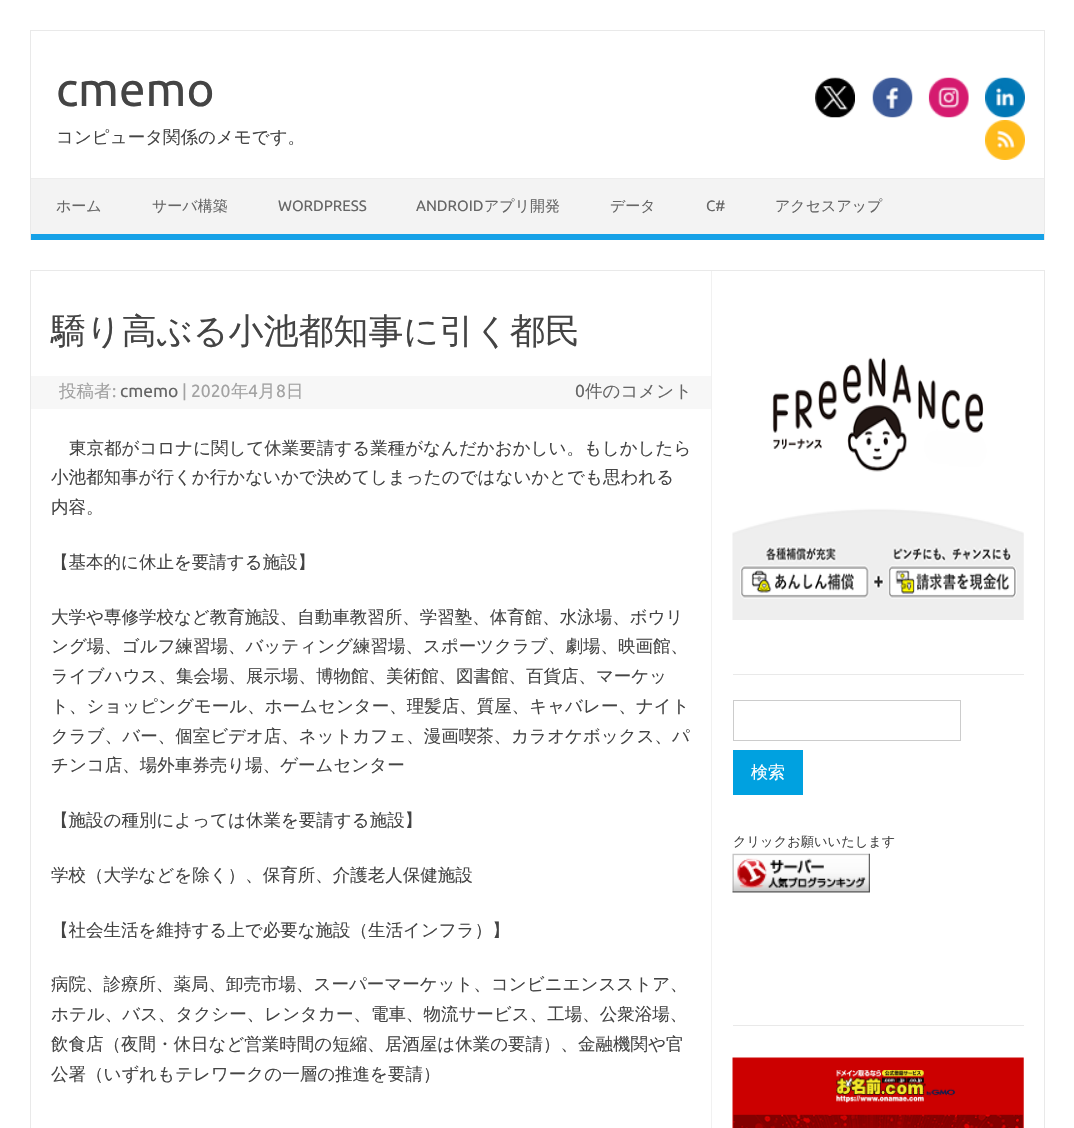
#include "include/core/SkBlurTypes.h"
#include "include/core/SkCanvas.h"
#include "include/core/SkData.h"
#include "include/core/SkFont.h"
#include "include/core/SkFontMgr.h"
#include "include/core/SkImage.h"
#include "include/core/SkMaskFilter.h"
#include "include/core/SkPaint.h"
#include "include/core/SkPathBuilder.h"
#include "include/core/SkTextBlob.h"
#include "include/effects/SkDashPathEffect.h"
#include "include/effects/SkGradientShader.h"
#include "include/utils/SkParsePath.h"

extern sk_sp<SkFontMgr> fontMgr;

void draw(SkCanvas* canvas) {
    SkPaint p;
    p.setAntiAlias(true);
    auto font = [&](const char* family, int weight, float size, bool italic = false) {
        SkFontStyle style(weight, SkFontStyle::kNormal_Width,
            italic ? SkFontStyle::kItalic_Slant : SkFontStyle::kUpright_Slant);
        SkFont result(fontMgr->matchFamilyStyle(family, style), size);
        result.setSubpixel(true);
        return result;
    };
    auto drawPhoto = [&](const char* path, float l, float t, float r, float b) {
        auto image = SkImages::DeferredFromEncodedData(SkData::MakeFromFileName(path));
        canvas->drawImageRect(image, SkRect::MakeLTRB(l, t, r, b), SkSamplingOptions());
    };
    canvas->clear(0xFFFFFFFF);
    {
        const struct { float l, t, r, b; SkColor color; } items[] = {
            {30, 30, 1045, 31, 0xFFE9E9E9},
            {1044, 30, 1045, 240, 0xFFE9E9E9},
            {30, 30, 31, 240, 0xFFE9E9E9},
        };
        for (auto [l, t, r, b, color] : items) {
            p.setColor(color);
            canvas->drawRect(SkRect::MakeLTRB(l, t, r, b), p);
        }
    }
    auto font1 = font("Ubuntu", 400, 47.5f);
    p.setColor(0xFF444444);
    canvas->drawString("cmemo", 56, 106, font1, p);
    auto font2 = font("WenQuanYi Zen Hei", 500, 17.5f);
    canvas->drawString("コンピュータ関係のメモです。", 56, 143, font2, p);
    drawPhoto("media/1.png", 815, 77, 855, 118);
    drawPhoto("media/2.png", 872, 77, 913, 118);
    drawPhoto("media/3.png", 928, 77, 969, 118);
    drawPhoto("media/4.png", 985, 77, 1025, 118);
    drawPhoto("media/5.png", 985, 120, 1025, 160);
    {
        const struct { float l, t, r, b; SkColor color; } items[] = {
            {31, 179, 1044, 234, 0xFFF3F3F3},
            {31, 178, 1044, 179, 0xFFEDEDED},
            {31, 234, 1044, 240, 0xFF16A1E7},
        };
        for (auto [l, t, r, b, color] : items) {
            p.setColor(color);
            canvas->drawRect(SkRect::MakeLTRB(l, t, r, b), p);
        }
    }
    auto font3 = font("WenQuanYi Zen Hei", 500, 15);
    p.setColor(0xFF666666);
    canvas->drawString("ホーム", 56, 211, font3, p);
    canvas->drawString("サーバ構築", 152, 211, font3, p);
    auto font4 = font("Ubuntu", 400, 15);
    canvas->drawString("WORDPRESS", 278, 211, font4, p);
    canvas->drawString("ANDROID", 416, 211, font4, p);
    canvas->drawString("アプリ開発", 484, 211, font3, p);
    canvas->drawString("データ", 610, 211, font3, p);
    canvas->drawString("C#", 706, 211, font4, p);
    canvas->drawString("アクセスアップ", 775, 211, font3, p);
    p.setStyle(SkPaint::kStroke_Style);
    p.setStrokeWidth(1);
    p.setColor(0xFFE9E9E9);
    canvas->drawRect(SkRect::MakeLTRB(30.5f, 270.5f, 1044.5f, 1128.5f), p);
    p.setStyle(SkPaint::kFill_Style);
    p.setColor(0xFFF1F1F1);
    canvas->drawRect(SkRect::MakeLTRB(711, 271, 712, 1128), p);
    auto font5 = font("WenQuanYi Zen Hei", 500, 35);
    p.setColor(0xFF444444);
    canvas->drawString("驕り高ぶる小池都知事に引く都民", 51, 343, font5, p);
    p.setColor(0xFFF7F7F7);
    canvas->drawRect(SkRect::MakeLTRB(31, 376, 711, 409), p);
    p.setColor(0xFFA2A2A2);
    canvas->drawString("投稿者", 59, 397, font2, p);
    auto font6 = font("Ubuntu", 400, 17.5f);
    canvas->drawString(":", 112, 397, font6, p);
    p.setColor(0xFF666666);
    canvas->drawString("cmemo", 120, 397, font6, p);
    p.setColor(0xFFA2A2A2);
    canvas->drawString("| 2020", 182, 397, font6, p);
    canvas->drawString("年", 231, 397, font2, p);
    canvas->drawString("4", 248, 397, font6, p);
    canvas->drawString("月", 258, 397, font2, p);
    canvas->drawString("8", 276, 397, font6, p);
    canvas->drawString("日", 286, 397, font2, p);
    p.setColor(0xFF666666);
    canvas->drawString("0", 575, 397, font6, p);
    canvas->drawString("件のコメント", 585, 397, font2, p);
    p.setColor(0xFF444444);
    {
        const struct { const char* s; float x, y; } items[] = {
            {"東京都がコロナに関して休業要請する業種がなんだかおかしい。もしかしたら", 69, 454},
            {"小池都知事が行くか行かないかで決めてしまったのではないかとでも思われる", 51, 483},
            {"内容。", 51, 513},
            {"【基本的に休止を要請する施設】", 51, 568},
            {"大学や専修学校など教育施設、自動車教習所、学習塾、体育館、水泳場、ボウリ", 51, 623},
            {"ング場、ゴルフ練習場、バッティング練習場、スポーツクラブ、劇場、映画館、", 51, 652},
            {"ライブハウス、集会場、展示場、博物館、美術館、図書館、百貨店、マーケッ", 51, 682},
            {"ト、ショッピングモール、ホームセンター、理髪店、質屋、キャバレー、ナイト", 51, 712},
            {"クラブ、バー、個室ビデオ店、ネットカフェ、漫画喫茶、カラオケボックス、パ", 51, 742},
            {"チンコ店、場外車券売り場、ゲームセンター", 51, 771},
            {"【施設の種別によっては休業を要請する施設】", 51, 826},
            {"学校（大学などを除く）、保育所、介護老人保健施設", 51, 881},
            {"【社会生活を維持する上で必要な施設（生活インフラ）】", 51, 936},
            {"病院、診療所、薬局、卸売市場、スーパーマーケット、コンビニエンスストア、", 51, 990},
            {"ホテル、バス、タクシー、レンタカー、電車、物流サービス、工場、公衆浴場、", 51, 1020},
            {"飲食店（夜間・休日など営業時間の短縮、居酒屋は休業の要請）、金融機関や官", 51, 1050},
            {"公署（いずれもテレワークの一層の推進を要請）", 51, 1080},
        };
        for (auto [s, x, y] : items) {
            canvas->drawString(s, x, y, font2, p);
        }
    }
    p.setColor(0xFFE9E9E9);
    canvas->drawRect(SkRect::MakeLTRB(733, 674, 1024, 675), p);
    drawPhoto("media/6.png", 732, 357, 1024, 620);
    p.setStyle(SkPaint::kStroke_Style);
    p.setColor(0xFFCCCCCC);
    canvas->drawRect(SkRect::MakeLTRB(733.5f, 700.5f, 960.5f, 740.5f), p);
    p.setStyle(SkPaint::kFill_Style);
    p.setColor(0xFF00A1E0);
    canvas->drawRect(SkRect::MakeLTRB(733, 750, 803, 795), p);
    auto font7 = font("WenQuanYi Zen Hei", 500, 17);
    p.setColor(0xFFFFFFFF);
    canvas->drawString("検索", 751, 778, font7, p);
    p.setColor(0xFFE9E9E9);
    canvas->drawRect(SkRect::MakeLTRB(733, 1025, 1024, 1026), p);
    auto font8 = font("WenQuanYi Zen Hei", 500, 13.25f);
    p.setColor(0xFF444444);
    canvas->drawString("クリックお願いいたします", 733, 846, font8, p);
    drawPhoto("media/7.png", 732, 853, 870, 893);
    drawPhoto("media/8.png", 732, 1057, 1024, 1128);
}
